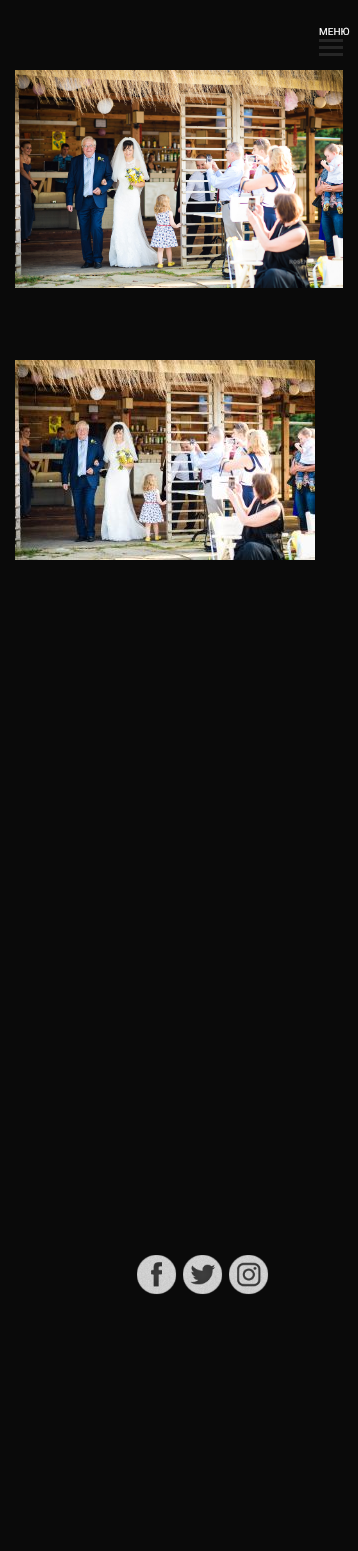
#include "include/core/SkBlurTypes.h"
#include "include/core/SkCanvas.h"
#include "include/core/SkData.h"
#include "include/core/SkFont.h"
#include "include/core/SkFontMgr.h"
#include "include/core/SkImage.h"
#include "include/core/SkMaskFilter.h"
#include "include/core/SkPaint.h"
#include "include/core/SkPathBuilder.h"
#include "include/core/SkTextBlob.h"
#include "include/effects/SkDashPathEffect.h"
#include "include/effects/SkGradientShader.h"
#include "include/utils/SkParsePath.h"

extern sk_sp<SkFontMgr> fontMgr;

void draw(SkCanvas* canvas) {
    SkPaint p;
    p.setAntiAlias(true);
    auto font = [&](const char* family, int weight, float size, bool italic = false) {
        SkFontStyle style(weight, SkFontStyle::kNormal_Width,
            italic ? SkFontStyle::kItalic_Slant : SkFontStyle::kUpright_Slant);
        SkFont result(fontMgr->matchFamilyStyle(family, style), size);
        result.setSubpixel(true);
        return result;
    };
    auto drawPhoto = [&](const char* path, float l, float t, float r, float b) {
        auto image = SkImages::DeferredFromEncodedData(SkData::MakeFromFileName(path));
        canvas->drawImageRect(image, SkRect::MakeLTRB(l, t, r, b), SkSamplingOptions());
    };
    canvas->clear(0xFF0A0A0A);
    auto font1 = font("Roboto", 400, 10);
    p.setColor(0xFFFFFFFF);
    canvas->drawString("МЕНЮ", 319, 35, font1, p);
    {
        const struct { float l, t, r, b; SkColor color; } items[] = {
            {319, 46, 343, 49, 0xFF262626},
            {319, 39, 343, 42, 0xFF262626},
            {319, 53, 343, 56, 0xFF262626},
        };
        for (auto [l, t, r, b, color] : items) {
            p.setColor(color);
            canvas->drawRect(SkRect::MakeLTRB(l, t, r, b), p);
        }
    }
    drawPhoto("media/1.png", 15, 70, 343, 288);
    drawPhoto("media/2.png", 15, 360, 315, 560);
    drawPhoto("media/3.png", 137, 1255, 177, 1295);
    drawPhoto("media/4.png", 183, 1255, 223, 1295);
    drawPhoto("media/5.png", 229, 1255, 269, 1295);
}
